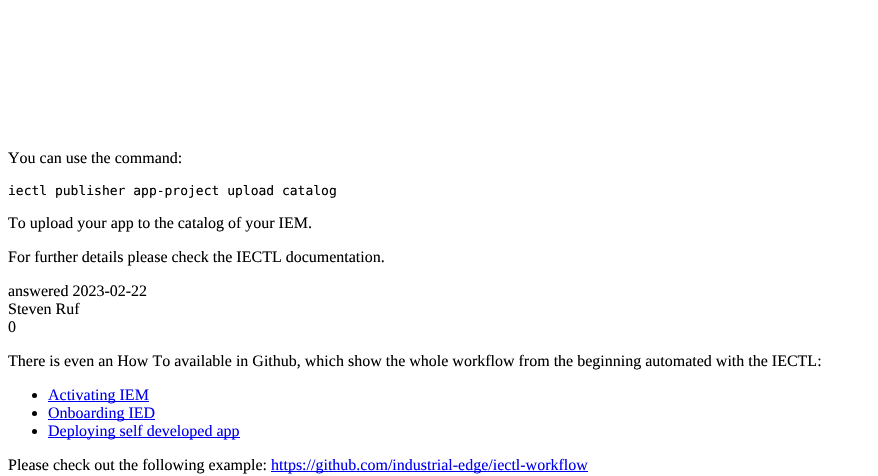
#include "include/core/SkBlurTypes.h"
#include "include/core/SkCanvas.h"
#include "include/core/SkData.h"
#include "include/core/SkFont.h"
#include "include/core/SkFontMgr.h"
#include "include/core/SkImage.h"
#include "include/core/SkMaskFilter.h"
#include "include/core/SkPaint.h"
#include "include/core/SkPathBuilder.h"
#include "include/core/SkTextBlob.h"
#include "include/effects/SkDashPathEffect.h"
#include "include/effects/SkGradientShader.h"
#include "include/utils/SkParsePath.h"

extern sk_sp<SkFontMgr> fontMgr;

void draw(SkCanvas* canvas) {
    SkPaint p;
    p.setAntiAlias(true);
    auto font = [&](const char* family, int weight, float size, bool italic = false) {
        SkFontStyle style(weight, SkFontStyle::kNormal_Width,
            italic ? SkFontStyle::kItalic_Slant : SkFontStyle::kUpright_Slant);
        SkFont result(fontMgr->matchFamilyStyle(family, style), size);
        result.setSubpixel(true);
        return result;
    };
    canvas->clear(0xFFFFFFFF);
    auto font1 = font("Liberation Serif", 400, 16);
    p.setColor(0xFF000000);
    canvas->drawString("You can use the command:", 8, 163, font1, p);
    auto font2 = font("DejaVu Sans Mono", 400, 13);
    canvas->drawString("iectl publisher app-project upload catalog", 8, 195, font2, p);
    {
        const struct { const char* s; float x, y; } items[] = {
            {"To upload your app to the catalog of your IEM.", 8, 228},
            {"For further details please check the IECTL documentation.", 8, 262},
            {"answered 2023-02-22", 8, 296},
            {"Steven Ruf", 8, 314},
            {"0", 8, 332},
            {"There is even an How To available in Github, which show the whole workflow from the beginning automated with the IECTL:", 8, 366},
        };
        for (auto [s, x, y] : items) {
            canvas->drawString(s, x, y, font1, p);
        }
    }
    canvas->drawCircle(34.5f, 395.5f, 2.5f, p);
    p.setColor(0xFF0000EE);
    canvas->drawRect(SkRect::MakeLTRB(48, 401, 149, 402), p);
    canvas->drawString("Activating IEM", 48, 400, font1, p);
    p.setColor(0xFF000000);
    canvas->drawCircle(34.5f, 413.5f, 2.5f, p);
    p.setColor(0xFF0000EE);
    canvas->drawRect(SkRect::MakeLTRB(48, 419, 155, 420), p);
    canvas->drawString("Onboarding IED", 48, 418, font1, p);
    p.setColor(0xFF000000);
    canvas->drawCircle(34.5f, 431.5f, 2.5f, p);
    p.setColor(0xFF0000EE);
    canvas->drawRect(SkRect::MakeLTRB(48, 437, 240, 438), p);
    canvas->drawString("Deploying self developed app", 48, 436, font1, p);
    p.setColor(0xFF000000);
    canvas->drawString("Please check out the following example:", 8, 470, font1, p);
    p.setColor(0xFF0000EE);
    canvas->drawRect(SkRect::MakeLTRB(271, 471, 588, 472), p);
    canvas->drawString("https://github.com/industrial-edge/iectl-workflow", 271, 470, font1, p);
}
